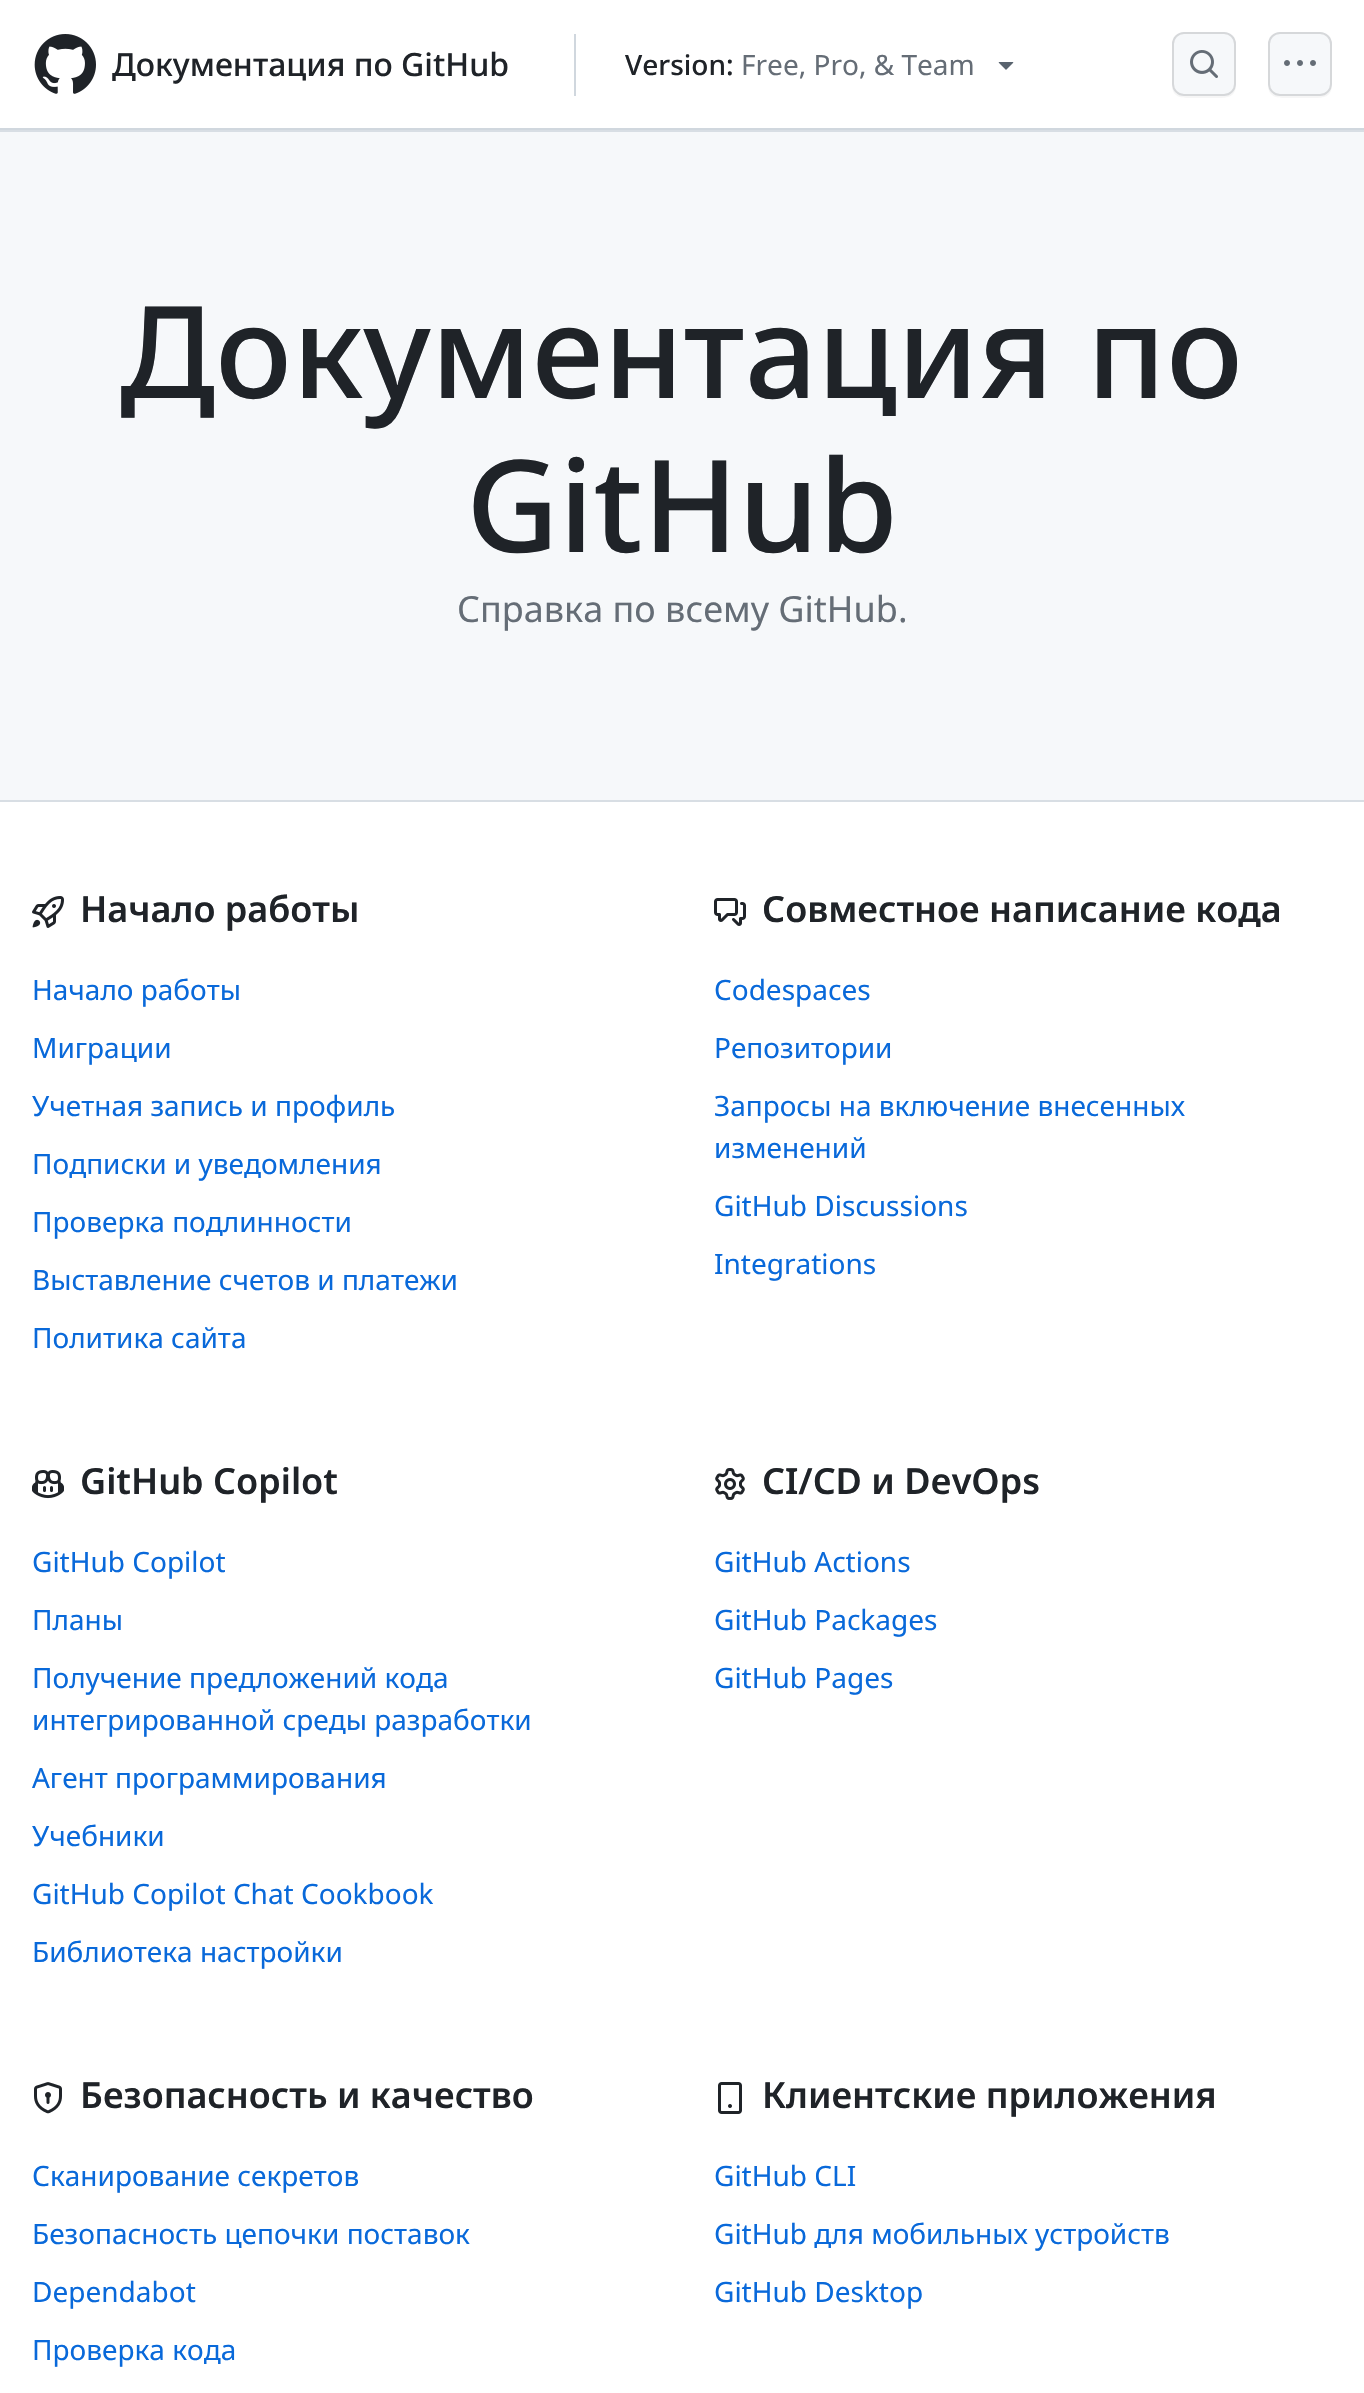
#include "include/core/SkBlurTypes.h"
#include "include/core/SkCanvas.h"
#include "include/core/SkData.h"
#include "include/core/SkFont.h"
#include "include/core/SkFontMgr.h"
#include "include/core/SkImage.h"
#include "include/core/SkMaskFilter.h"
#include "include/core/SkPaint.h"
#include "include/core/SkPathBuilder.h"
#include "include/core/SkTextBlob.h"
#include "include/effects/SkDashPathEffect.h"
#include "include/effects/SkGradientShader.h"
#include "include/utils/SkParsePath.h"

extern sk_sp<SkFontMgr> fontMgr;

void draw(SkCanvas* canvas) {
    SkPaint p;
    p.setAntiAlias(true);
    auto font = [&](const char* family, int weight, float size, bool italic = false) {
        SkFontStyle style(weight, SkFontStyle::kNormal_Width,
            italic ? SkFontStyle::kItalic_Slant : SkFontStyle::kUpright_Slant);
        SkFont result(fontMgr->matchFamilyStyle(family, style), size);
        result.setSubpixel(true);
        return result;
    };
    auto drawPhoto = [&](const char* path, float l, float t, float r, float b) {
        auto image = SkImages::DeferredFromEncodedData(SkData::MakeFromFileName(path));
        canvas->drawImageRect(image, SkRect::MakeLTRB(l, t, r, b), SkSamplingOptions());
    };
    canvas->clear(0xFFFFFFFF);
    p.setColor(0xFFD8DEE4);
    canvas->drawRect(SkRect::MakeLTRB(0, 130, 1364, 132), p);
    p.setColor(0xFFD0D7DE);
    canvas->drawRect(SkRect::MakeLTRB(0, 128, 1364, 130), p);
    drawPhoto("media/1.png", 34, 34, 96, 94);
    auto font1 = font("Noto Sans", 500, 32);
    p.setColor(0xFF1F2328);
    canvas->drawString("Документация по GitHub", 112, 76, font1, p);
    p.setColor(0xFFD0D7DE);
    canvas->drawRect(SkRect::MakeLTRB(574, 34, 576, 96), p);
    auto font2 = font("Noto Sans", 500, 28);
    p.setColor(0xFF1F2328);
    canvas->drawString("Version:", 625, 75, font2, p);
    auto font3 = font("Noto Sans", 400, 28);
    p.setColor(0xFF656D76);
    canvas->drawString("Free, Pro, & Team", 741, 75, font3, p);
    drawPhoto("media/2.png", 998, 62, 1014, 70);
    p.setColor(0xFFF6F6F6);
    canvas->drawPath(SkPathBuilder().moveTo(1172, 84).cubicTo(1172, 97, 1180, 98, 1191, 98).lineTo(1217, 98).cubicTo(1228, 98, 1236, 97, 1236, 84).cubicTo(1236, 91, 1231, 96, 1224, 96).lineTo(1184, 96).cubicTo(1177, 96, 1172, 91, 1172, 84).close().detach(), p);
    p.setColor(0xFFF6F8FA);
    canvas->drawRoundRect(SkRect::MakeLTRB(1172, 32, 1236, 96), 12, 12, p);
    p.setStyle(SkPaint::kStroke_Style);
    p.setStrokeWidth(2);
    p.setColor(0x261F2328);
    canvas->drawRoundRect(SkRect::MakeLTRB(1173, 33, 1235, 95), 11, 11, p);
    drawPhoto("media/3.png", 1190, 50, 1218, 78);
    p.setStyle(SkPaint::kFill_Style);
    p.setColor(0xFFF6F6F6);
    canvas->drawPath(SkPathBuilder().moveTo(1268, 84).cubicTo(1268, 97, 1276, 98, 1287, 98).lineTo(1313, 98).cubicTo(1324, 98, 1332, 97, 1332, 84).cubicTo(1332, 91, 1327, 96, 1320, 96).lineTo(1280, 96).cubicTo(1273, 96, 1268, 91, 1268, 84).close().detach(), p);
    p.setColor(0xFFF6F8FA);
    canvas->drawRoundRect(SkRect::MakeLTRB(1268, 32, 1332, 96), 12, 12, p);
    p.setStyle(SkPaint::kStroke_Style);
    p.setColor(0x261F2328);
    canvas->drawRoundRect(SkRect::MakeLTRB(1269, 33, 1331, 95), 11, 11, p);
    drawPhoto("media/4.png", 1284, 60, 1316, 66);
    p.setStyle(SkPaint::kFill_Style);
    p.setColor(0xFFF6F8FA);
    canvas->drawRect(SkRect::MakeLTRB(0, 132, 1364, 800), p);
    p.setColor(0xFFD8DEE4);
    canvas->drawRect(SkRect::MakeLTRB(0, 800, 1364, 802), p);
    auto font4 = font("Noto Sans", 500, 128);
    p.setColor(0xFF1F2328);
    canvas->drawString("Документация по", 120, 398, font4, p);
    canvas->drawString("GitHub", 466, 552, font4, p);
    auto font5 = font("Noto Sans", 400, 36);
    p.setColor(0xFF656D76);
    canvas->drawString("Справка по всему GitHub.", 457, 622, font5, p);
    drawPhoto("media/5.png", 32, 896, 64, 928);
    auto font6 = font("Noto Sans", 600, 36);
    p.setColor(0xFF1F2328);
    canvas->drawString("Начало работы", 80, 922, font6, p);
    p.setColor(0xFF0969DA);
    {
        const struct { const char* s; float x, y; } items[] = {
            {"Начало работы", 32, 1000},
            {"Миграции", 32, 1058},
            {"Учетная запись и профиль", 32, 1116},
            {"Подписки и уведомления", 32, 1174},
            {"Проверка подлинности", 32, 1232},
            {"Выставление счетов и платежи", 32, 1290},
            {"Политика сайта", 32, 1348},
        };
        for (auto [s, x, y] : items) {
            canvas->drawString(s, x, y, font3, p);
        }
    }
    drawPhoto("media/6.png", 714, 898, 746, 926);
    p.setColor(0xFF1F2328);
    canvas->drawString("Совместное написание кода", 762, 922, font6, p);
    p.setColor(0xFF0969DA);
    {
        const struct { const char* s; float x, y; } items[] = {
            {"Codespaces", 714, 1000},
            {"Репозитории", 714, 1058},
            {"Запросы на включение внесенных", 714, 1116},
            {"изменений", 714, 1158},
            {"GitHub Discussions", 714, 1216},
            {"Integrations", 714, 1274},
        };
        for (auto [s, x, y] : items) {
            canvas->drawString(s, x, y, font3, p);
        }
    }
    drawPhoto("media/7.png", 32, 1470, 64, 1499);
    p.setColor(0xFF1F2328);
    canvas->drawString("GitHub Copilot", 80, 1494, font6, p);
    p.setColor(0xFF0969DA);
    {
        const struct { const char* s; float x, y; } items[] = {
            {"GitHub Copilot", 32, 1572},
            {"Планы", 32, 1630},
            {"Получение предложений кода", 32, 1688},
            {"интегрированной среды разработки", 32, 1730},
            {"Агент программирования", 32, 1788},
            {"Учебники", 32, 1846},
            {"GitHub Copilot Chat Cookbook", 32, 1904},
            {"Библиотека настройки", 32, 1962},
        };
        for (auto [s, x, y] : items) {
            canvas->drawString(s, x, y, font3, p);
        }
    }
    drawPhoto("media/8.png", 715, 1468, 745, 1500);
    p.setColor(0xFF1F2328);
    canvas->drawString("CI/CD и DevOps", 762, 1494, font6, p);
    p.setColor(0xFF0969DA);
    {
        const struct { const char* s; float x, y; } items[] = {
            {"GitHub Actions", 714, 1572},
            {"GitHub Packages", 714, 1630},
            {"GitHub Pages", 714, 1688},
        };
        for (auto [s, x, y] : items) {
            canvas->drawString(s, x, y, font3, p);
        }
    }
    drawPhoto("media/9.png", 34, 2082, 62, 2114);
    p.setColor(0xFF1F2328);
    canvas->drawString("Безопасность и качество", 80, 2108, font6, p);
    p.setColor(0xFF0969DA);
    {
        const struct { const char* s; float x, y; } items[] = {
            {"Сканирование секретов", 32, 2186},
            {"Безопасность цепочки поставок", 32, 2244},
            {"Dependabot", 32, 2302},
            {"Проверка кода", 32, 2360},
        };
        for (auto [s, x, y] : items) {
            canvas->drawString(s, x, y, font3, p);
        }
    }
    drawPhoto("media/10.png", 718, 2082, 742, 2114);
    p.setColor(0xFF1F2328);
    canvas->drawString("Клиентские приложения", 762, 2108, font6, p);
    p.setColor(0xFF0969DA);
    {
        const struct { const char* s; float x, y; } items[] = {
            {"GitHub CLI", 714, 2186},
            {"GitHub для мобильных устройств", 714, 2244},
            {"GitHub Desktop", 714, 2302},
        };
        for (auto [s, x, y] : items) {
            canvas->drawString(s, x, y, font3, p);
        }
    }
}
